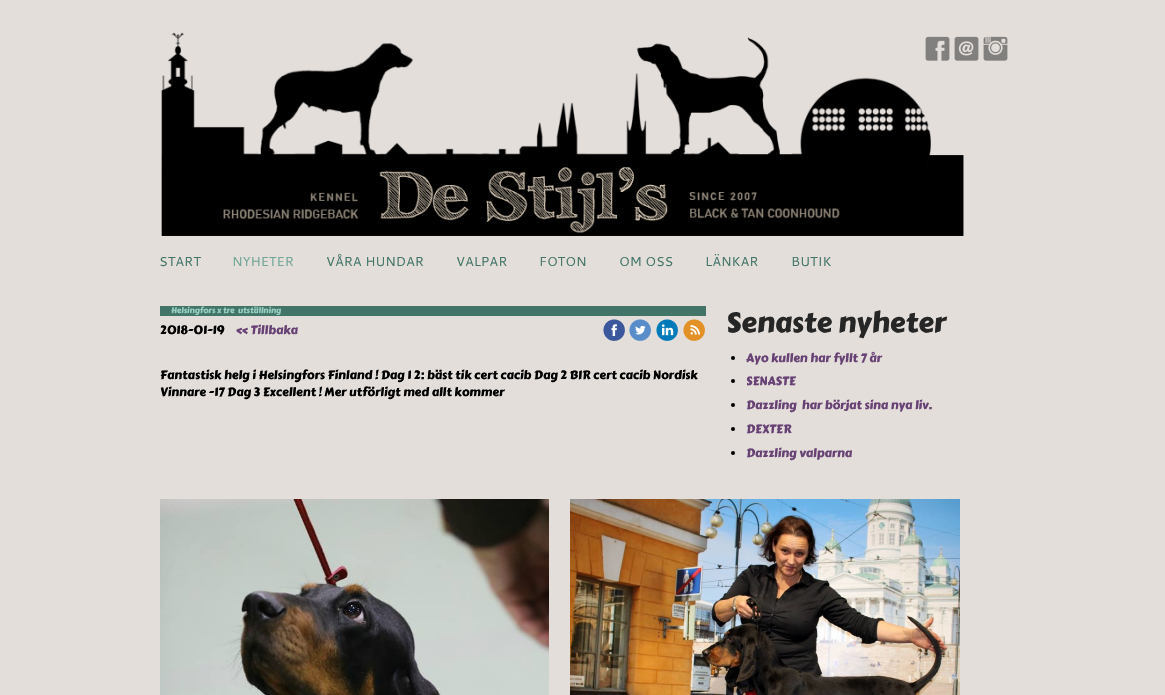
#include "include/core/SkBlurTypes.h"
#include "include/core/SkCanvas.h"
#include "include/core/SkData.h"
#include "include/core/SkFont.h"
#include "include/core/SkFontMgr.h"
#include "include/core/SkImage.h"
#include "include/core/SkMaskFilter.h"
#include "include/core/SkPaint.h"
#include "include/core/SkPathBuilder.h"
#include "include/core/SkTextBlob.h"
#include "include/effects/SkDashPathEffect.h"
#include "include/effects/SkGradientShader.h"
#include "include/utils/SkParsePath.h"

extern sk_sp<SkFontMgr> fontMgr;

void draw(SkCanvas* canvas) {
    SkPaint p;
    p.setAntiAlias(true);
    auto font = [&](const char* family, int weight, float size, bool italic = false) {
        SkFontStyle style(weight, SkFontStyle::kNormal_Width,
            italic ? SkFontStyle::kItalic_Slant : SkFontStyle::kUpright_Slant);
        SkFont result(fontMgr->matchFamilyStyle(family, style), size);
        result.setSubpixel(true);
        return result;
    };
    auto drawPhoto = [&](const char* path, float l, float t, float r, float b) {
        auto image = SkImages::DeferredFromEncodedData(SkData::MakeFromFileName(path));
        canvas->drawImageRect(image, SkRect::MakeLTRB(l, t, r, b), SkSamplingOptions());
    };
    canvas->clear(0xFFE3DEDA);
    drawPhoto("media/1.png", 161, 32, 964, 236);
    drawPhoto("media/2.png", 925, 36, 950, 61);
    drawPhoto("media/3.png", 954, 36, 979, 61);
    drawPhoto("media/4.png", 983, 36, 1008, 61);
    auto font1 = font("Cantarell", 400, 13);
    p.setColor(0xFF427568);
    canvas->drawString("START", 159, 266, font1, p);
    p.setColor(0xFF71A699);
    canvas->drawString("NYHETER", 232, 266, font1, p);
    p.setColor(0xFF427568);
    {
        const struct { const char* s; float x, y; } items[] = {
            {"VÅRA HUNDAR", 326, 266},
            {"VALPAR", 456, 266},
            {"FOTON", 539, 266},
            {"OM OSS", 619, 266},
            {"LÄNKAR", 705, 266},
            {"BUTIK", 791, 266},
        };
        for (auto [s, x, y] : items) {
            canvas->drawString(s, x, y, font1, p);
        }
    }
    canvas->drawRect(SkRect::MakeLTRB(160, 306, 706, 316), p);
    auto font2 = font("Carter One", 400, 8);
    p.setColor(0xFF97CFC1);
    canvas->drawString("Helsingfors x tre  utställning", 171, 313, font2, p);
    auto font3 = font("Carter One", 400, 12);
    p.setColor(0xFF000000);
    canvas->drawString("2018-01-19", 160, 334, font3, p);
    p.setColor(0xFF684275);
    canvas->drawString("« Tillbaka", 236, 334, font3, p);
    drawPhoto("media/5.png", 603, 319, 625, 341);
    drawPhoto("media/6.png", 629, 319, 651, 341);
    drawPhoto("media/7.png", 656, 319, 678, 341);
    drawPhoto("media/8.png", 683, 319, 705, 341);
    p.setColor(0xFF000000);
    canvas->drawString("Fantastisk helg i Helsingfors Finland ! Dag 1 2: bäst tik cert cacib Dag 2 BIR cert cacib Nordisk", 160, 379, font3, p);
    canvas->drawString("Vinnare -17 Dag 3 Excellent ! Mer utförligt med allt kommer", 160, 396, font3, p);
    auto font4 = font("Carter One", 400, 28);
    p.setColor(0xFF262626);
    canvas->drawString("Senaste nyheter", 726, 332, font4, p);
    p.setColor(0xFF000000);
    canvas->drawCircle(733, 358, 2, p);
    p.setColor(0xFF684275);
    canvas->drawString("Ayo kullen har fyllt 7 år", 746, 362, font3, p);
    p.setColor(0xFF000000);
    canvas->drawCircle(733, 381, 2, p);
    p.setColor(0xFF684275);
    canvas->drawString("SENASTE", 746, 385, font3, p);
    p.setColor(0xFF000000);
    canvas->drawCircle(733, 405, 2, p);
    p.setColor(0xFF684275);
    canvas->drawString("Dazzling  har börjat sina nya liv.", 746, 409, font3, p);
    p.setColor(0xFF000000);
    canvas->drawCircle(733, 429, 2, p);
    p.setColor(0xFF684275);
    canvas->drawString("DEXTER", 746, 433, font3, p);
    p.setColor(0xFF000000);
    canvas->drawCircle(733, 453, 2, p);
    p.setColor(0xFF684275);
    canvas->drawString("Dazzling valparna", 746, 457, font3, p);
    drawPhoto("media/9.png", 160, 499, 549, 695);
    drawPhoto("media/10.png", 570, 499, 960, 695);
}
